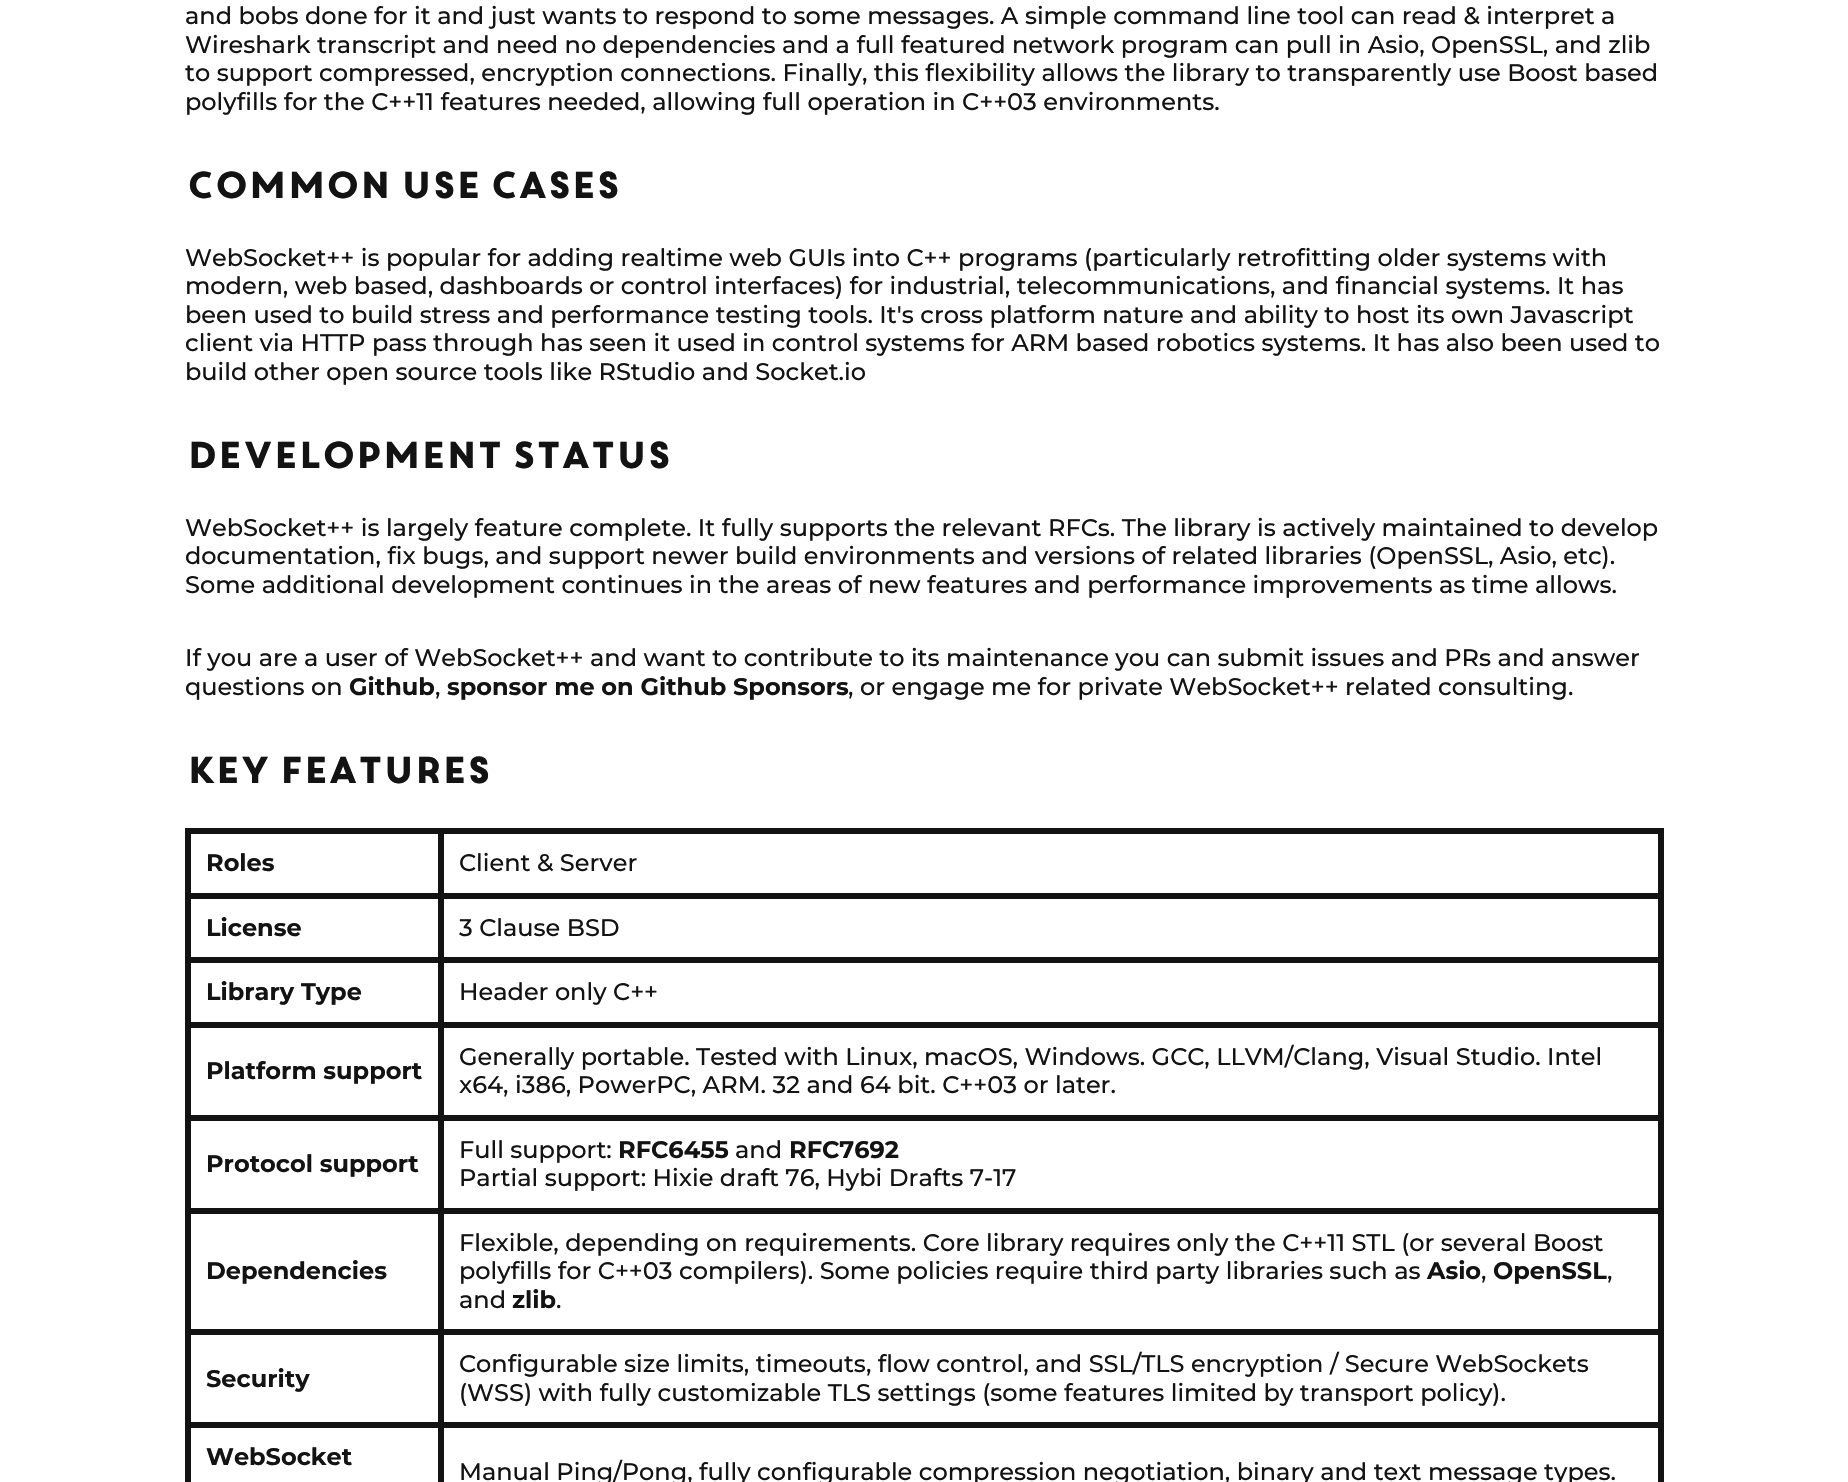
#include "include/core/SkBlurTypes.h"
#include "include/core/SkCanvas.h"
#include "include/core/SkData.h"
#include "include/core/SkFont.h"
#include "include/core/SkFontMgr.h"
#include "include/core/SkImage.h"
#include "include/core/SkMaskFilter.h"
#include "include/core/SkPaint.h"
#include "include/core/SkPathBuilder.h"
#include "include/core/SkTextBlob.h"
#include "include/effects/SkDashPathEffect.h"
#include "include/effects/SkGradientShader.h"
#include "include/utils/SkParsePath.h"

extern sk_sp<SkFontMgr> fontMgr;

void draw(SkCanvas* canvas) {
    SkPaint p;
    p.setAntiAlias(true);
    auto font = [&](const char* family, int weight, float size, bool italic = false) {
        SkFontStyle style(weight, SkFontStyle::kNormal_Width,
            italic ? SkFontStyle::kItalic_Slant : SkFontStyle::kUpright_Slant);
        SkFont result(fontMgr->matchFamilyStyle(family, style), size);
        result.setSubpixel(true);
        return result;
    };
    auto drawTracked = [&](const char* s, float x, float y, const SkFont& font, const SkPaint& ink, float letter, float word) {
        std::vector<SkGlyphID> glyphs(font.countText(s, strlen(s), SkTextEncoding::kUTF8));
        std::vector<float> xs(glyphs.size());
        font.textToGlyphs(s, strlen(s), SkTextEncoding::kUTF8, glyphs);
        font.getXPos(glyphs, xs, x);
        float extra = 0;
        for (size_t i = 0; i < glyphs.size(); i++) {
            xs[i] += extra;
            extra += letter + word * (glyphs[i] == font.unicharToGlyph(' '));
        }
        canvas->drawTextBlob(SkTextBlob::MakeFromPosHGlyphs(glyphs, xs, y, font), 0, 0, ink);
    };
    canvas->clear(0xFFFFFFFF);
    auto font1 = font("Montserrat", 500, 24);
    p.setColor(0xFF131313);
    {
        const struct { const char* s; float x, y; } items[] = {
            {"and bobs done for it and just wants to respond to some messages. A simple command line tool can read & interpret a", 185, 24},
            {"Wireshark transcript and need no dependencies and a full featured network program can pull in Asio, OpenSSL, and zlib", 185, 53},
            {"to support compressed, encryption connections. Finally, this flexibility allows the library to transparently use Boost based", 185, 81},
            {"polyfills for the C++11 features needed, allowing full operation in C++03 environments.", 185, 110},
        };
        for (auto [s, x, y] : items) {
            canvas->drawString(s, x, y, font1, p);
        }
    }
    auto font2 = font("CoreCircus", 700, 36);
    drawTracked("Common Use Cases", 185, 198, font2, p, -3, 0);
    {
        const struct { const char* s; float x, y; } items[] = {
            {"WebSocket++ is popular for adding realtime web GUIs into C++ programs (particularly retrofitting older systems with", 185, 266},
            {"modern, web based, dashboards or control interfaces) for industrial, telecommunications, and financial systems. It has", 185, 294},
            {"been used to build stress and performance testing tools. It's cross platform nature and ability to host its own Javascript", 185, 323},
            {"client via HTTP pass through has seen it used in control systems for ARM based robotics systems. It has also been used to", 185, 351},
            {"build other open source tools like RStudio and Socket.io", 185, 380},
        };
        for (auto [s, x, y] : items) {
            canvas->drawString(s, x, y, font1, p);
        }
    }
    drawTracked("Development Status", 185, 468, font2, p, -3, 0);
    {
        const struct { const char* s; float x, y; } items[] = {
            {"WebSocket++ is largely feature complete. It fully supports the relevant RFCs. The library is actively maintained to develop", 185, 536},
            {"documentation, fix bugs, and support newer build environments and versions of related libraries (OpenSSL, Asio, etc).", 185, 564},
            {"Some additional development continues in the areas of new features and performance improvements as time allows.", 185, 593},
            {"If you are a user of WebSocket++ and want to contribute to its maintenance you can submit issues and PRs and answer", 185, 666},
            {"questions on", 185, 695},
        };
        for (auto [s, x, y] : items) {
            canvas->drawString(s, x, y, font1, p);
        }
    }
    auto font3 = font("Montserrat", 700, 24);
    canvas->drawString("Github", 349, 695, font3, p);
    canvas->drawString(",", 435, 695, font1, p);
    canvas->drawString("sponsor me on Github Sponsors", 447, 695, font3, p);
    canvas->drawString(", or engage me for private WebSocket++ related consulting.", 848, 695, font1, p);
    drawTracked("Key Features", 185, 783, font2, p, -3, 0);
    {
        const struct { float l, t, r, b; SkColor color; } items[] = {
            {438, 828, 1664, 834, 0xFF131313},
            {438, 893, 1664, 899, 0xFF131313},
            {438, 957, 1664, 963, 0xFF131313},
            {438, 1022, 1664, 1028, 0xFF131313},
            {438, 1115, 1664, 1121, 0xFF131313},
            {438, 1208, 1664, 1214, 0xFF131313},
            {438, 1329, 1664, 1335, 0xFF131313},
            {438, 1422, 1664, 1428, 0xFF131313},
            {438, 1422, 444, 1482, 0xFF131313},
            {185, 1422, 444, 1428, 0xFF131313},
            {438, 1329, 444, 1428, 0xFF131313},
            {185, 1329, 444, 1335, 0xFF131313},
            {438, 1208, 444, 1335, 0xFF131313},
            {185, 1208, 444, 1214, 0xFF131313},
            {438, 1115, 444, 1214, 0xFF131313},
            {185, 1115, 444, 1121, 0xFF131313},
            {438, 1022, 444, 1121, 0xFF131313},
            {185, 1022, 444, 1028, 0xFF131313},
            {438, 957, 444, 1028, 0xFF131313},
            {185, 957, 444, 963, 0xFF131313},
            {438, 893, 444, 963, 0xFF131313},
            {185, 893, 444, 899, 0xFF131313},
            {438, 828, 444, 899, 0xFF131313},
            {185, 828, 444, 834, 0xFF131313},
            {185, 1422, 191, 1482, 0xFF131313},
            {185, 1329, 191, 1428, 0xFF131313},
            {185, 1208, 191, 1335, 0xFF131313},
            {185, 1115, 191, 1214, 0xFF131313},
            {185, 1022, 191, 1121, 0xFF131313},
            {185, 957, 191, 1028, 0xFF131313},
            {185, 893, 191, 963, 0xFF131313},
            {185, 828, 191, 899, 0xFF131313},
        };
        for (auto [l, t, r, b, color] : items) {
            p.setColor(color);
            canvas->drawRect(SkRect::MakeLTRB(l, t, r, b), p);
        }
    }
    canvas->drawString("Roles", 206, 871, font3, p);
    {
        const struct { float l, t, r, b; SkColor color; } items[] = {
            {1658, 1422, 1664, 1482, 0xFF131313},
            {1658, 1329, 1664, 1428, 0xFF131313},
            {1658, 1208, 1664, 1335, 0xFF131313},
            {1658, 1115, 1664, 1214, 0xFF131313},
            {1658, 1022, 1664, 1121, 0xFF131313},
            {1658, 957, 1664, 1028, 0xFF131313},
            {1658, 893, 1664, 963, 0xFF131313},
            {1658, 828, 1664, 899, 0xFF131313},
        };
        for (auto [l, t, r, b, color] : items) {
            p.setColor(color);
            canvas->drawRect(SkRect::MakeLTRB(l, t, r, b), p);
        }
    }
    canvas->drawString("Client & Server", 459, 871, font1, p);
    canvas->drawString("License", 206, 936, font3, p);
    canvas->drawString("3 Clause BSD", 459, 936, font1, p);
    canvas->drawString("Library Type", 206, 1000, font3, p);
    canvas->drawString("Header only C++", 459, 1000, font1, p);
    canvas->drawString("Platform support", 206, 1079, font3, p);
    canvas->drawString("Generally portable. Tested with Linux, macOS, Windows. GCC, LLVM/Clang, Visual Studio. Intel", 459, 1065, font1, p);
    canvas->drawString("x64, i386, PowerPC, ARM. 32 and 64 bit. C++03 or later.", 459, 1093, font1, p);
    canvas->drawString("Protocol support", 206, 1172, font3, p);
    canvas->drawString("Full support:", 459, 1158, font1, p);
    canvas->drawString("RFC6455", 618, 1158, font3, p);
    canvas->drawString("and", 735, 1158, font1, p);
    canvas->drawString("RFC7692", 789, 1158, font3, p);
    canvas->drawString("Partial support: Hixie draft 76, Hybi Drafts 7-17", 459, 1186, font1, p);
    canvas->drawString("Dependencies", 206, 1279, font3, p);
    canvas->drawString("Flexible, depending on requirements. Core library requires only the C++11 STL (or several Boost", 459, 1251, font1, p);
    canvas->drawString("polyfills for C++03 compilers). Some policies require third party libraries such as", 459, 1279, font1, p);
    canvas->drawString("Asio", 1427, 1279, font3, p);
    canvas->drawString(",", 1481, 1279, font1, p);
    canvas->drawString("OpenSSL", 1493, 1279, font3, p);
    canvas->drawString(",", 1607, 1279, font1, p);
    canvas->drawString("and", 459, 1308, font1, p);
    canvas->drawString("zlib", 512, 1308, font3, p);
    canvas->drawString(".", 556, 1308, font1, p);
    canvas->drawString("Security", 206, 1387, font3, p);
    canvas->drawString("Configurable size limits, timeouts, flow control, and SSL/TLS encryption / Secure WebSockets", 459, 1372, font1, p);
    canvas->drawString("(WSS) with fully customizable TLS settings (some features limited by transport policy).", 459, 1401, font1, p);
    canvas->drawString("WebSocket", 206, 1465, font3, p);
    canvas->drawString("Manual Ping/Pong, fully configurable compression negotiation, binary and text message types.", 459, 1480, font1, p);
}
